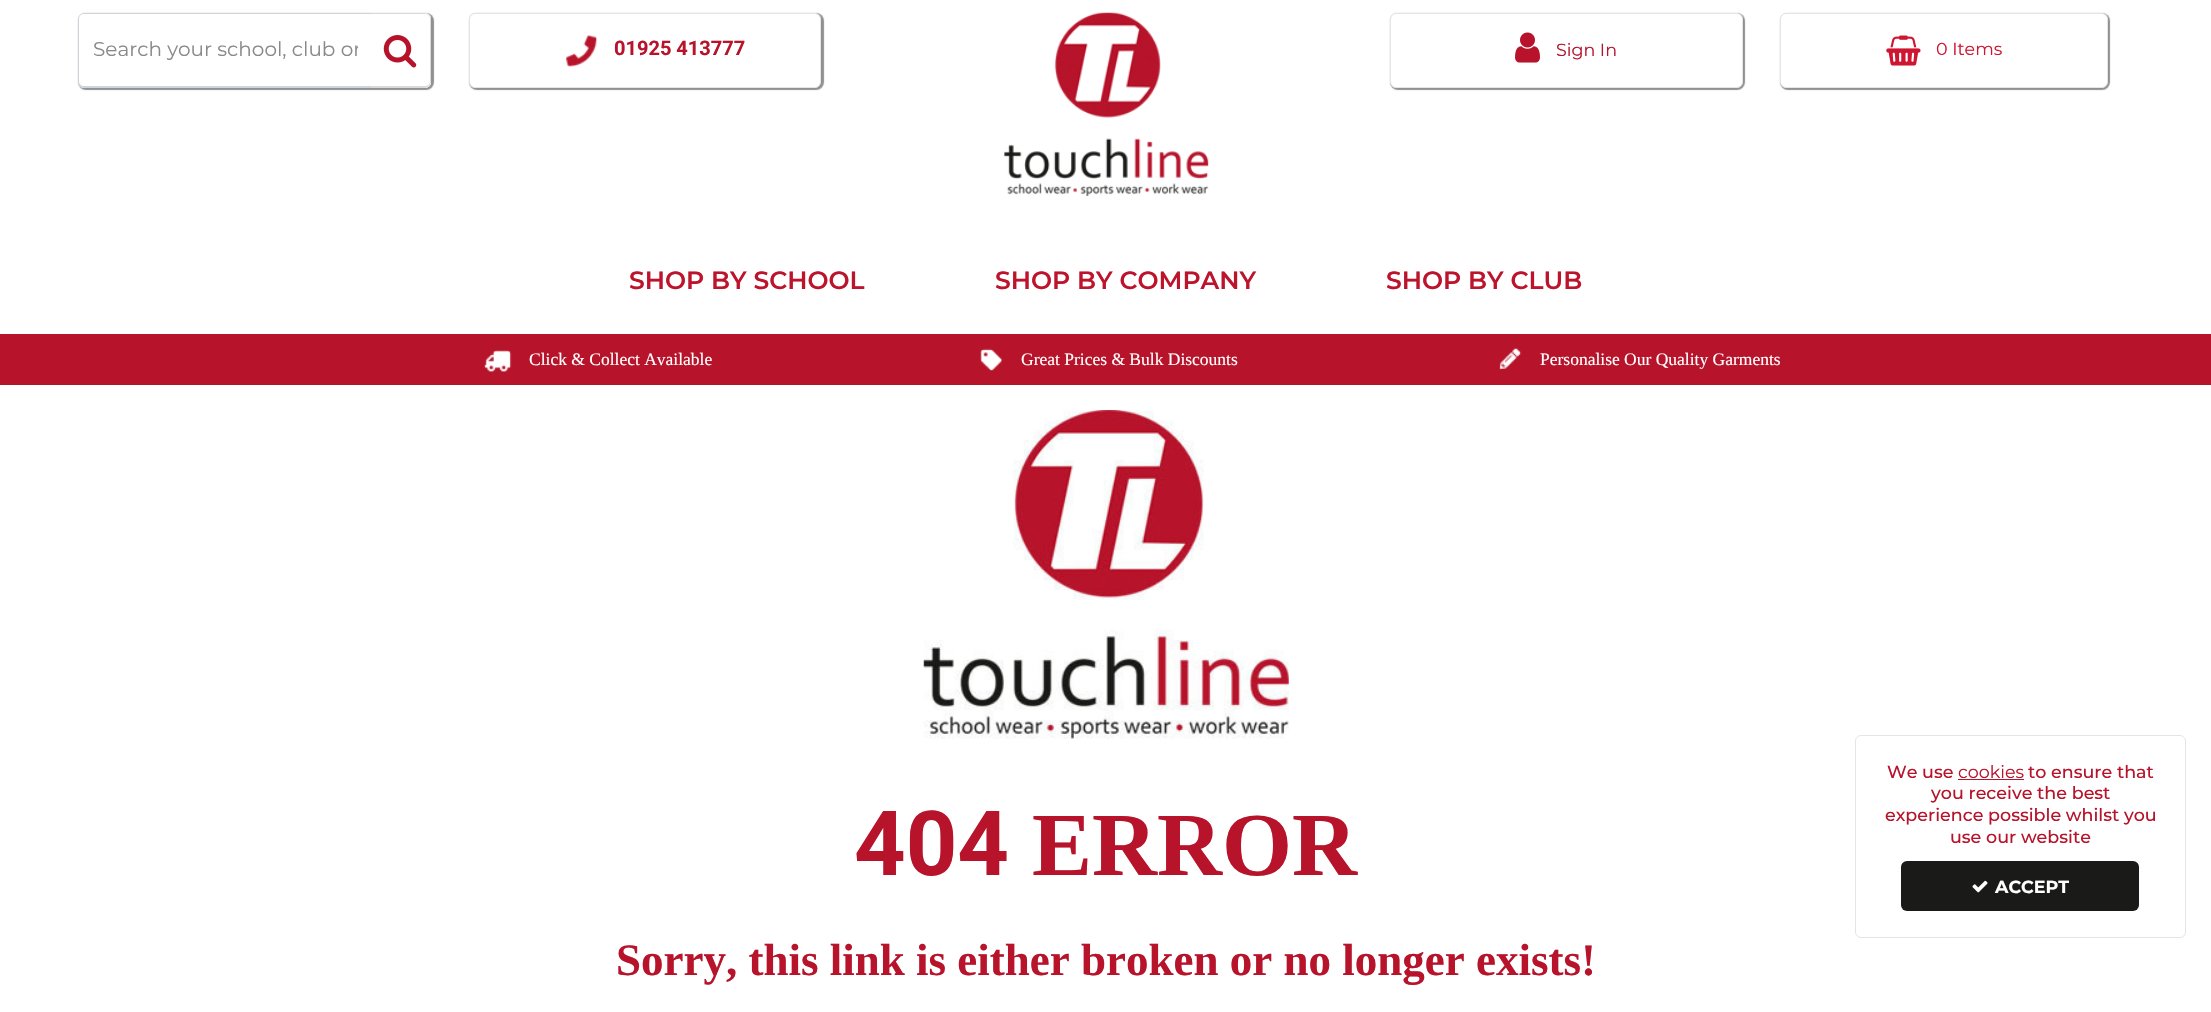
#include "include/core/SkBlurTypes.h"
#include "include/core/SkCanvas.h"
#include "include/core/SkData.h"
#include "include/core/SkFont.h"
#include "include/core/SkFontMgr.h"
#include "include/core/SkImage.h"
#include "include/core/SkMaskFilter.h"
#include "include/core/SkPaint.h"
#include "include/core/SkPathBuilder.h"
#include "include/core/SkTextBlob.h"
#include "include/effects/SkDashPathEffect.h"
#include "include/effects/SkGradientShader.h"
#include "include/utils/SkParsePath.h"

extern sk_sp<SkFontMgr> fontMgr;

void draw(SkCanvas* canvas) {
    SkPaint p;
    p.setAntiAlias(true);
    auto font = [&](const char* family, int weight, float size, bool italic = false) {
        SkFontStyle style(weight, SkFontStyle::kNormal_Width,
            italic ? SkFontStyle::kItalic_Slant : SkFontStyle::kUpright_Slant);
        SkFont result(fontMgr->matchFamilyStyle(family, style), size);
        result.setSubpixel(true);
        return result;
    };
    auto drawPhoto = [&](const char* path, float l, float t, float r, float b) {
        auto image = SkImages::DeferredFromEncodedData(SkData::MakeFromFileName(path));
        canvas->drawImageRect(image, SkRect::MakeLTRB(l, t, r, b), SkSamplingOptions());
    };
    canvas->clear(0xFFFFFFFF);
    canvas->save();
    canvas->clipPath(SkPathBuilder(SkPathFillType::kEvenOdd).moveTo(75, 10).lineTo(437, 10).lineTo(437, 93).lineTo(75, 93).close().moveTo(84, 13).lineTo(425, 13).cubicTo(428.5f, 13, 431, 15.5f, 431, 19).lineTo(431, 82).cubicTo(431, 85.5f, 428.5f, 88, 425, 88).lineTo(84, 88).cubicTo(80.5f, 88, 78, 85.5f, 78, 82).lineTo(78, 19).cubicTo(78, 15.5f, 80.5f, 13, 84, 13).close().detach(), true);
    p.setColor(0xFF909090);
    p.setMaskFilter(SkMaskFilter::MakeBlur(kNormal_SkBlurStyle, 0.5f));
    canvas->drawRoundRect(SkRect::MakeLTRB(78, 13, 434, 90), 8, 8, p);
    p.setMaskFilter(nullptr);
    canvas->restore();
    p.setColor(0xFFCED4DA);
    canvas->drawPath(SkPathBuilder().moveTo(84, 14).lineTo(371, 14).lineTo(371, 13).lineTo(84, 13).cubicTo(81, 13, 78, 16, 78, 19).lineTo(78, 81).cubicTo(78, 83, 78, 84, 79, 86).cubicTo(80, 87, 82, 88, 84, 88).lineTo(371, 88).lineTo(371, 86).lineTo(84, 86).cubicTo(81, 86, 79, 84, 79, 81).lineTo(79, 19).cubicTo(79, 16, 81, 14, 84, 14).close().detach(), p);
    canvas->save();
    canvas->clipRect(SkRect::MakeLTRB(94, 38, 358, 61));
    auto font1 = font("Montserrat", 400, 20);
    p.setColor(0xFF898989);
    canvas->drawString("Search your school, club or", 93, 56, font1, p);
    canvas->restore();
    p.setColor(0xFFFFFFFF);
    canvas->drawPath(SkPathBuilder().moveTo(371, 13).lineTo(425, 13).cubicTo(428.5f, 13, 431, 15.5f, 431, 19).lineTo(431, 82).cubicTo(431, 85.5f, 428.5f, 88, 425, 88).lineTo(371, 88).close().detach(), p);
    p.setColor(0x26000000);
    canvas->drawPath(SkPathBuilder().moveTo(371, 14).lineTo(425, 14).cubicTo(428, 14, 430, 16, 430, 19).lineTo(430, 81).cubicTo(430, 84, 428, 86, 425, 86).lineTo(371, 86).lineTo(371, 88).lineTo(425, 88).cubicTo(428, 88, 431, 85, 431, 81).lineTo(431, 19).cubicTo(431, 16, 428, 13, 425, 13).lineTo(371, 13).close().detach(), p);
    drawPhoto("media/1.png", 383, 35, 417, 68);
    p.setColor(0xFF909090);
    p.setMaskFilter(SkMaskFilter::MakeBlur(kNormal_SkBlurStyle, 0.5f));
    canvas->drawRoundRect(SkRect::MakeLTRB(469, 13, 824, 90), 8, 8, p);
    p.setMaskFilter(nullptr);
    p.setColor(0xFFFFFFFF);
    canvas->drawRoundRect(SkRect::MakeLTRB(469.5f, 13.5f, 820.5f, 87.5f), 5.5f, 5.5f, p);
    p.setStyle(SkPaint::kStroke_Style);
    p.setStrokeWidth(1);
    p.setColor(0xFFE5E5E5);
    canvas->drawRoundRect(SkRect::MakeLTRB(469.5f, 13.5f, 820.5f, 87.5f), 5.5f, 5.5f, p);
    drawPhoto("media/2.png", 566, 35, 597, 67);
    auto font2 = font("Roboto", 700, 20);
    p.setStyle(SkPaint::kFill_Style);
    p.setColor(0xFFB7142C);
    canvas->drawString("01925 413777", 614, 55, font2, p);
    drawPhoto("media/3.png", 1004, 12, 1209, 197);
    p.setColor(0xFF909090);
    p.setMaskFilter(SkMaskFilter::MakeBlur(kNormal_SkBlurStyle, 0.5f));
    canvas->drawRoundRect(SkRect::MakeLTRB(1390, 13, 1745, 90), 8, 8, p);
    p.setMaskFilter(nullptr);
    p.setColor(0xFFFFFFFF);
    canvas->drawRoundRect(SkRect::MakeLTRB(1390.5f, 13.5f, 1742.5f, 87.5f), 5.5f, 5.5f, p);
    p.setStyle(SkPaint::kStroke_Style);
    p.setColor(0xFFE5E5E5);
    canvas->drawRoundRect(SkRect::MakeLTRB(1390.5f, 13.5f, 1742.5f, 87.5f), 5.5f, 5.5f, p);
    drawPhoto("media/4.png", 1515, 32, 1540, 63);
    auto font3 = font("Montserrat", 400, 17.5f);
    p.setStyle(SkPaint::kFill_Style);
    p.setColor(0xFFB7142C);
    canvas->drawString("Sign In", 1556, 56, font3, p);
    p.setColor(0xFF909090);
    p.setMaskFilter(SkMaskFilter::MakeBlur(kNormal_SkBlurStyle, 0.5f));
    canvas->drawRoundRect(SkRect::MakeLTRB(1780, 13, 2110, 90), 8, 8, p);
    p.setMaskFilter(nullptr);
    p.setColor(0xFFFFFFFF);
    canvas->drawRoundRect(SkRect::MakeLTRB(1780.5f, 13.5f, 2107.5f, 87.5f), 5.5f, 5.5f, p);
    p.setStyle(SkPaint::kStroke_Style);
    p.setColor(0xFFE5E5E5);
    canvas->drawRoundRect(SkRect::MakeLTRB(1780.5f, 13.5f, 2107.5f, 87.5f), 5.5f, 5.5f, p);
    drawPhoto("media/5.png", 1886, 35, 1921, 66);
    p.setStyle(SkPaint::kFill_Style);
    p.setColor(0xFFCE1531);
    canvas->drawString("0 Items", 1936, 55, font3, p);
    auto font4 = font("Montserrat", 600, 25);
    p.setColor(0xFFBD142D);
    {
        const struct { const char* s; float x, y; } items[] = {
            {"SHOP BY SCHOOL", 629, 289},
            {"SHOP BY COMPANY", 995, 289},
            {"SHOP BY CLUB", 1386, 289},
        };
        for (auto [s, x, y] : items) {
            canvas->drawString(s, x, y, font4, p);
        }
    }
    p.setColor(0xFFB7142B);
    canvas->drawRect(SkRect::MakeLTRB(0, 334, 2211, 385), p);
    drawPhoto("media/6.png", 484, 350, 512, 372);
    auto font5 = font("Liberation Serif", 400, 17.5f);
    p.setColor(0xFFFFFFFF);
    canvas->drawString("Click & Collect Available", 529, 365, font5, p);
    drawPhoto("media/7.png", 980, 348, 1003, 371);
    canvas->drawString("Great Prices & Bulk Discounts", 1021, 365, font5, p);
    drawPhoto("media/8.png", 1499, 348, 1522, 370);
    canvas->drawString("Personalise Our Quality Garments", 1540, 365, font5, p);
    drawPhoto("media/9.png", 923, 410, 1289, 739);
    auto font6 = font("Roboto", 700, 90);
    p.setColor(0xFFB7142C);
    canvas->drawString("404", 854, 875, font6, p);
    auto font7 = font("Liberation Serif", 700, 90);
    canvas->drawString("ERROR", 1032, 875, font7, p);
    auto font8 = font("Liberation Serif", 700, 45);
    canvas->drawString("Sorry, this link is either broken or no longer exists!", 616, 975, font8, p);
    p.setStyle(SkPaint::kStroke_Style);
    p.setColor(0xFFE5E5E5);
    canvas->drawRoundRect(SkRect::MakeLTRB(1855.5f, 735.5f, 2185.5f, 937.5f), 5.5f, 5.5f, p);
    auto font9 = font("Montserrat", 500, 17.5f);
    p.setStyle(SkPaint::kFill_Style);
    p.setColor(0xFFB7142C);
    canvas->drawString("We use", 1887, 778, font9, p);
    canvas->drawString("cookies", 1958, 778, font3, p);
    canvas->drawRect(SkRect::MakeLTRB(1958, 779, 2024, 780), p);
    {
        const struct { const char* s; float x, y; } items[] = {
            {"to ensure that", 2028, 778},
            {"you receive the best", 1931, 799},
            {"experience possible whilst you", 1885, 821},
            {"use our website", 1950, 843},
        };
        for (auto [s, x, y] : items) {
            canvas->drawString(s, x, y, font9, p);
        }
    }
    p.setColor(0xFF1A1A18);
    canvas->drawRoundRect(SkRect::MakeLTRB(1901, 861, 2139, 911), 6, 6, p);
    drawPhoto("media/10.png", 1972, 880, 1988, 893);
    auto font10 = font("Montserrat", 700, 17.5f);
    p.setColor(0xFFFFFFFF);
    canvas->drawString("ACCEPT", 1995, 893, font10, p);
}
